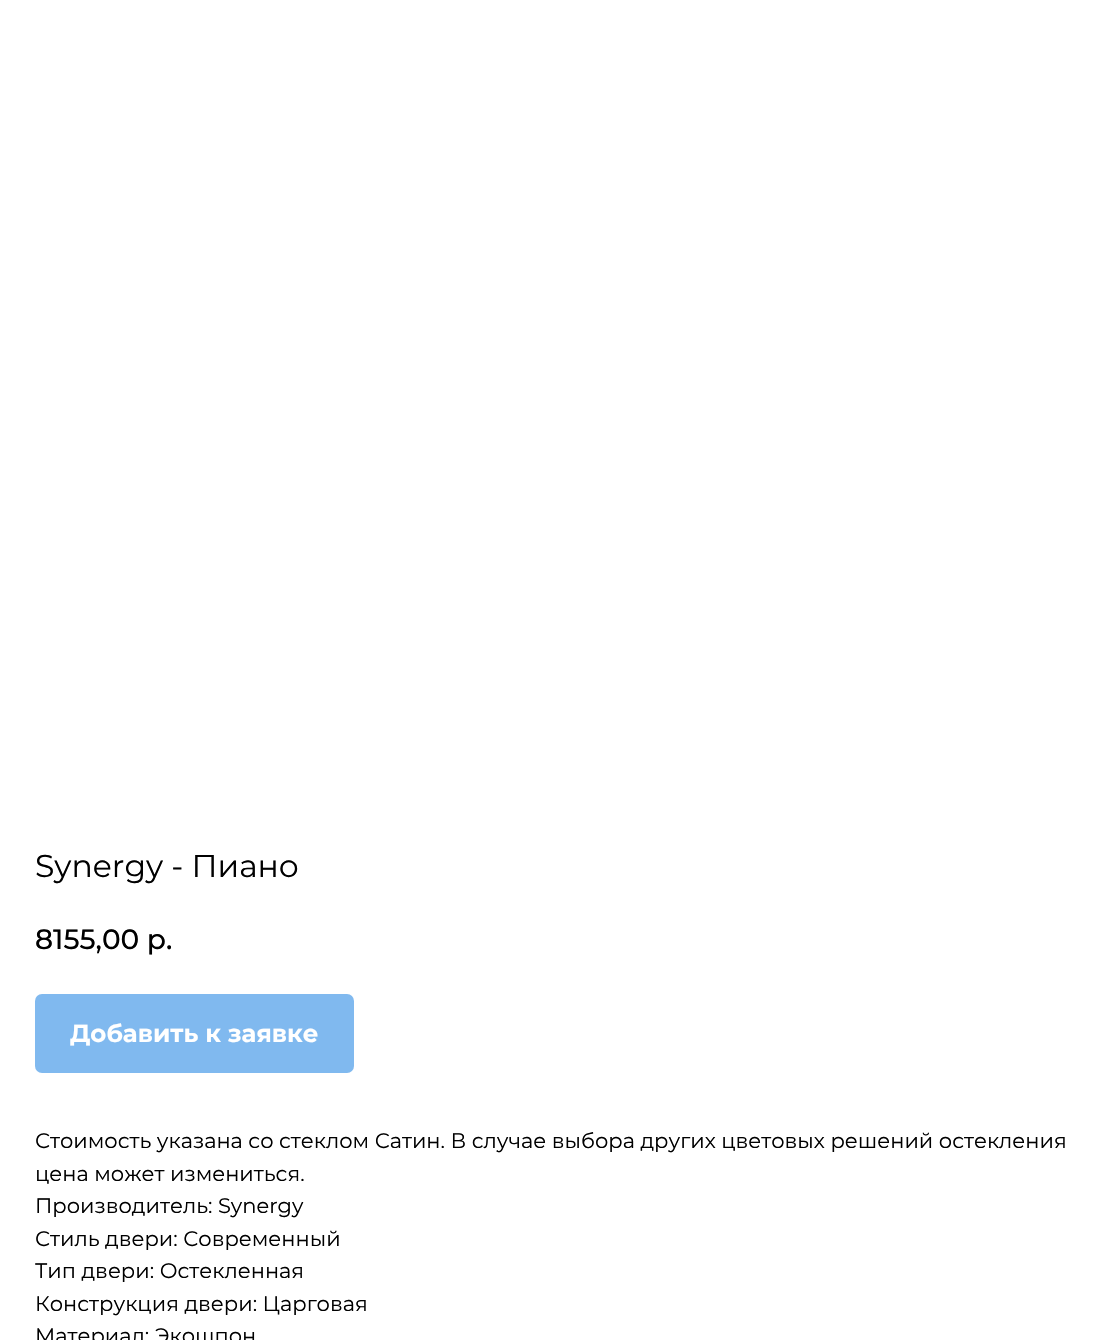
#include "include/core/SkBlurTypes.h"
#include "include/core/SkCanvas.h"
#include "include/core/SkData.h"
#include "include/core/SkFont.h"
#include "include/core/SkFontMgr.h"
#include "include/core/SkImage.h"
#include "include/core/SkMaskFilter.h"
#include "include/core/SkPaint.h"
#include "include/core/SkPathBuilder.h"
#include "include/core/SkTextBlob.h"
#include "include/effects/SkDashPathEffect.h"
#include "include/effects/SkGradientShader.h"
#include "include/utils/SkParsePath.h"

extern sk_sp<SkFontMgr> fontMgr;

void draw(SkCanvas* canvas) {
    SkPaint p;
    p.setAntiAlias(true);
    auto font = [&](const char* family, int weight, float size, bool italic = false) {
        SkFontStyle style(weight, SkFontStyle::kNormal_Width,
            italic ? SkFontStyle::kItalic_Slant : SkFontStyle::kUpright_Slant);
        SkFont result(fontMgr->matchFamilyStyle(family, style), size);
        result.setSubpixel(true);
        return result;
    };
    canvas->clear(0xFFFFFFFF);
    auto font1 = font("Montserrat", 400, 31.5f);
    p.setColor(0xFF000000);
    canvas->drawString("Synergy - Пиано", 35, 877, font1, p);
    auto font2 = font("Montserrat", 500, 28);
    canvas->drawString("8155,00 р.", 35, 949, font2, p);
    p.setColor(0xFF80B9EF);
    canvas->drawRoundRect(SkRect::MakeLTRB(35, 994, 354, 1073), 7, 7, p);
    auto font3 = font("Montserrat", 700, 24.5f);
    p.setColor(0xFFFFFFFF);
    canvas->drawString("Добавить к заявке", 70, 1042, font3, p);
    auto font4 = font("Montserrat", 400, 21);
    p.setColor(0xFF000000);
    {
        const struct { const char* s; float x, y; } items[] = {
            {"Стоимость указана со стеклом Сатин. В случае выбора других цветовых решений остекления", 35, 1148},
            {"цена может измениться.", 35, 1181},
            {"Производитель: Synergy", 35, 1213},
            {"Стиль двери: Современный", 35, 1246},
            {"Тип двери: Остекленная", 35, 1278},
            {"Конструкция двери: Царговая", 35, 1311},
            {"Материал: Экошпон", 35, 1343},
        };
        for (auto [s, x, y] : items) {
            canvas->drawString(s, x, y, font4, p);
        }
    }
}
